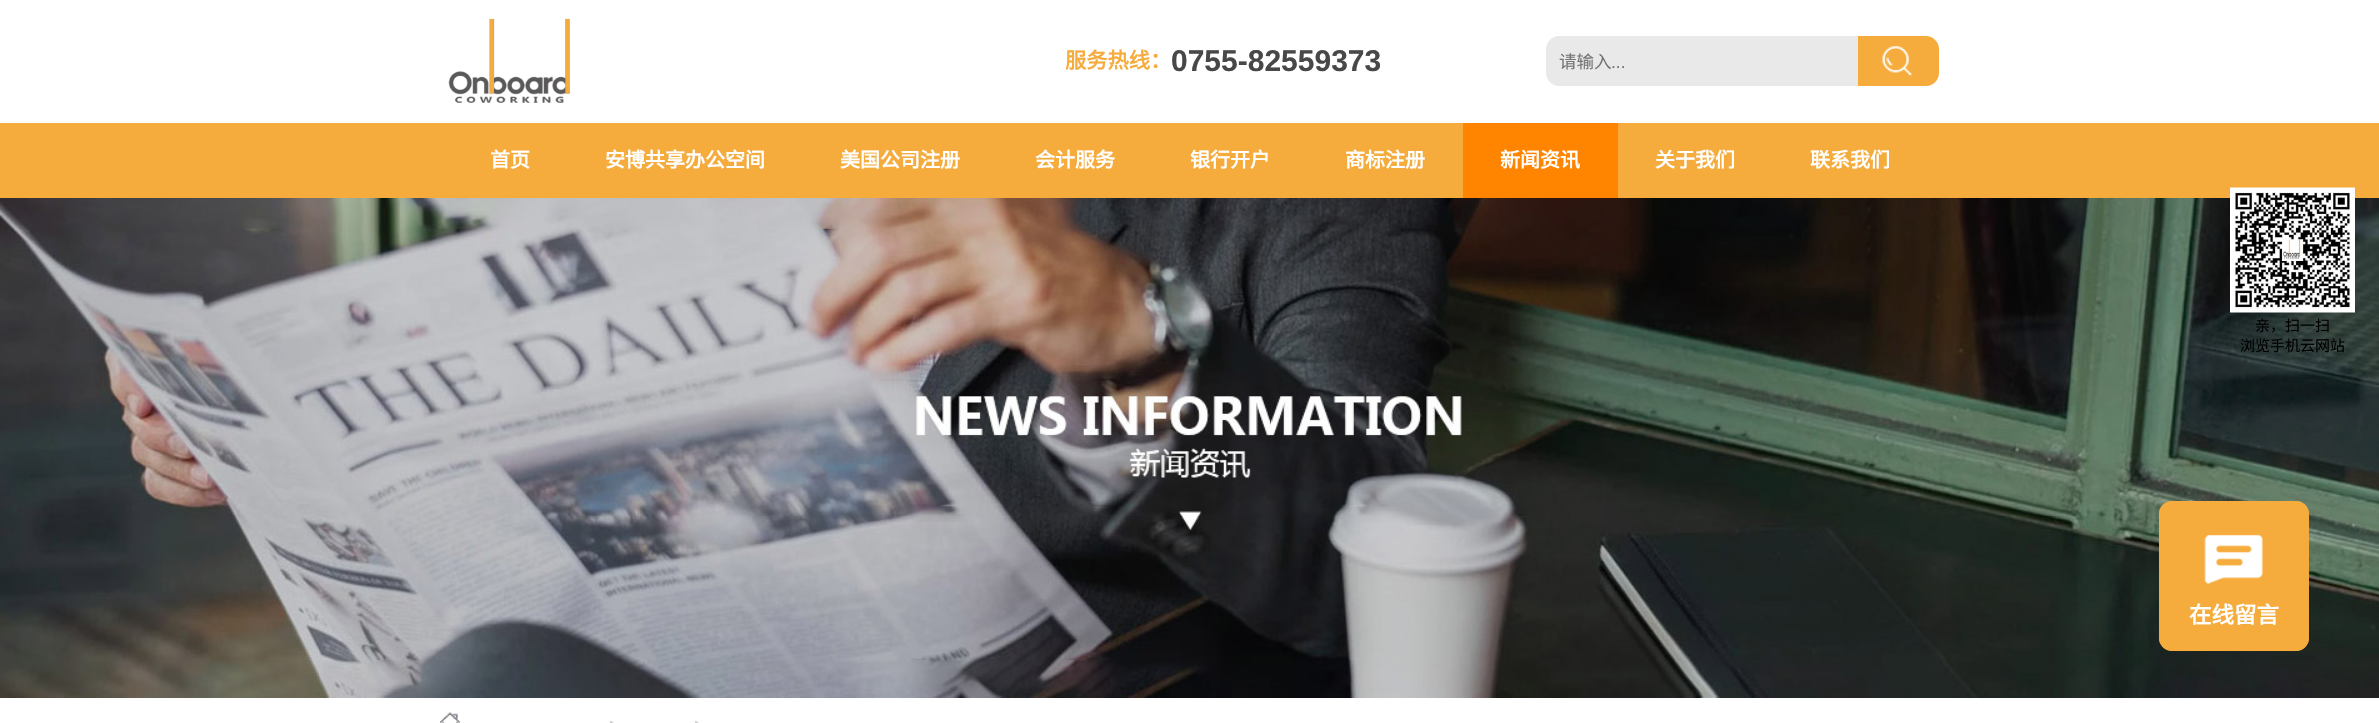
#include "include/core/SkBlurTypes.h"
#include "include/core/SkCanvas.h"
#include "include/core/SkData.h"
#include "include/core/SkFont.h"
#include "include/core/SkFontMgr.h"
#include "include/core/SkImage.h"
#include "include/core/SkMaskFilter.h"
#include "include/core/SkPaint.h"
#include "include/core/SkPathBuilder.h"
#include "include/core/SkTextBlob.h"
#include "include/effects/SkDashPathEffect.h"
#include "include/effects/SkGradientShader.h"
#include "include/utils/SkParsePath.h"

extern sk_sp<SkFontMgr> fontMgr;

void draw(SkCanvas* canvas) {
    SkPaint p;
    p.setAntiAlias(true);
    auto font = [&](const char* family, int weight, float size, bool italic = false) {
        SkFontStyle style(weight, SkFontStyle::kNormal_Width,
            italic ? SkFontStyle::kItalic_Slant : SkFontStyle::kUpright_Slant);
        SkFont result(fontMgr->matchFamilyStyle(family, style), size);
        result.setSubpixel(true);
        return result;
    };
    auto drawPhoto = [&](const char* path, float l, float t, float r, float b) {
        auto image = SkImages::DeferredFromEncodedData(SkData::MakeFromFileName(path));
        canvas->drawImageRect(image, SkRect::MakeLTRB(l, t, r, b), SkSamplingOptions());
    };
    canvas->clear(0xFFFFFFFF);
    drawPhoto("media/1.png", 448, 18, 570, 103);
    auto font1 = font("Noto Sans CJK SC", 700, 21.25f);
    p.setColor(0xFFF5AC3D);
    canvas->drawString("服务热线：", 1065, 68, font1, p);
    auto font2 = font("Liberation Sans", 700, 30);
    p.setColor(0xFF484848);
    canvas->drawString("0755-82559373", 1171, 71, font2, p);
    p.setColor(0xFFE9E9E9);
    canvas->drawPath(SkPathBuilder().moveTo(1559, 36).lineTo(1859, 36).lineTo(1859, 86).lineTo(1559, 86).cubicTo(1552, 86, 1546, 80, 1546, 73).lineTo(1546, 49).cubicTo(1546, 42, 1552, 36, 1559, 36).close().detach(), p);
    auto font3 = font("Noto Sans CJK SC", 400, 17.5f);
    p.setColor(0xFF757575);
    canvas->drawString("请输入", 1559, 68, font3, p);
    auto font4 = font("Liberation Sans", 400, 17.5f);
    canvas->drawString("...", 1611, 68, font4, p);
    p.setColor(0xFFF5AC3D);
    canvas->drawPath(SkPathBuilder().moveTo(1858, 36).lineTo(1926, 36).cubicTo(1933, 36, 1939, 42, 1939, 49).lineTo(1939, 73).cubicTo(1939, 80, 1933, 86, 1926, 86).lineTo(1858, 86).close().detach(), p);
    drawPhoto("media/2.png", 1882, 46, 1912, 76);
    canvas->drawRect(SkRect::MakeLTRB(0, 123, 2379, 198), p);
    auto font5 = font("Noto Sans CJK SC", 700, 20);
    p.setColor(0xFFFFFFFF);
    {
        const struct { const char* s; float x, y; } items[] = {
            {"首页", 490, 167},
            {"安博共享办公空间", 605, 167},
            {"美国公司注册", 840, 167},
            {"会计服务", 1035, 167},
            {"银行开户", 1190, 167},
            {"商标注册", 1345, 167},
        };
        for (auto [s, x, y] : items) {
            canvas->drawString(s, x, y, font5, p);
        }
    }
    p.setColor(0xFFFF8400);
    canvas->drawRect(SkRect::MakeLTRB(1463, 123, 1618, 198), p);
    p.setColor(0xFFFFFFFF);
    {
        const struct { const char* s; float x, y; } items[] = {
            {"新闻资讯", 1500, 167},
            {"关于我们", 1655, 167},
            {"联系我们", 1810, 167},
        };
        for (auto [s, x, y] : items) {
            canvas->drawString(s, x, y, font5, p);
        }
    }
    drawPhoto("media/3.png", 0, 198, 2379, 698);
    drawPhoto("media/4.png", 2230, 187, 2355, 313);
    auto font6 = font("Noto Sans CJK SC", 400, 15);
    p.setColor(0xFF000000);
    canvas->drawString("亲，扫一扫", 2255, 331, font6, p);
    canvas->drawString("浏览手机云网站", 2240, 351, font6, p);
    p.setColor(0xFFF5AC3D);
    canvas->drawRoundRect(SkRect::MakeLTRB(2159, 501, 2309, 651), 13, 13, p);
    drawPhoto("media/5.png", 2204, 534, 2263, 585);
    p.setStyle(SkPaint::kStroke_Style);
    p.setStrokeWidth(1);
    canvas->drawRoundRect(SkRect::MakeLTRB(2159.5f, 501.5f, 2308.5f, 650.5f), 12.5f, 12.5f, p);
    auto font7 = font("Noto Sans CJK SC", 700, 22.5f);
    p.setStyle(SkPaint::kFill_Style);
    p.setColor(0xFFFFFFFF);
    canvas->drawString("在线留言", 2189, 623, font7, p);
    drawPhoto("media/6.png", 440, 712, 460, 723);
    drawPhoto("media/7.png", 610, 721, 614, 723);
    drawPhoto("media/8.png", 695, 721, 699, 723);
}
